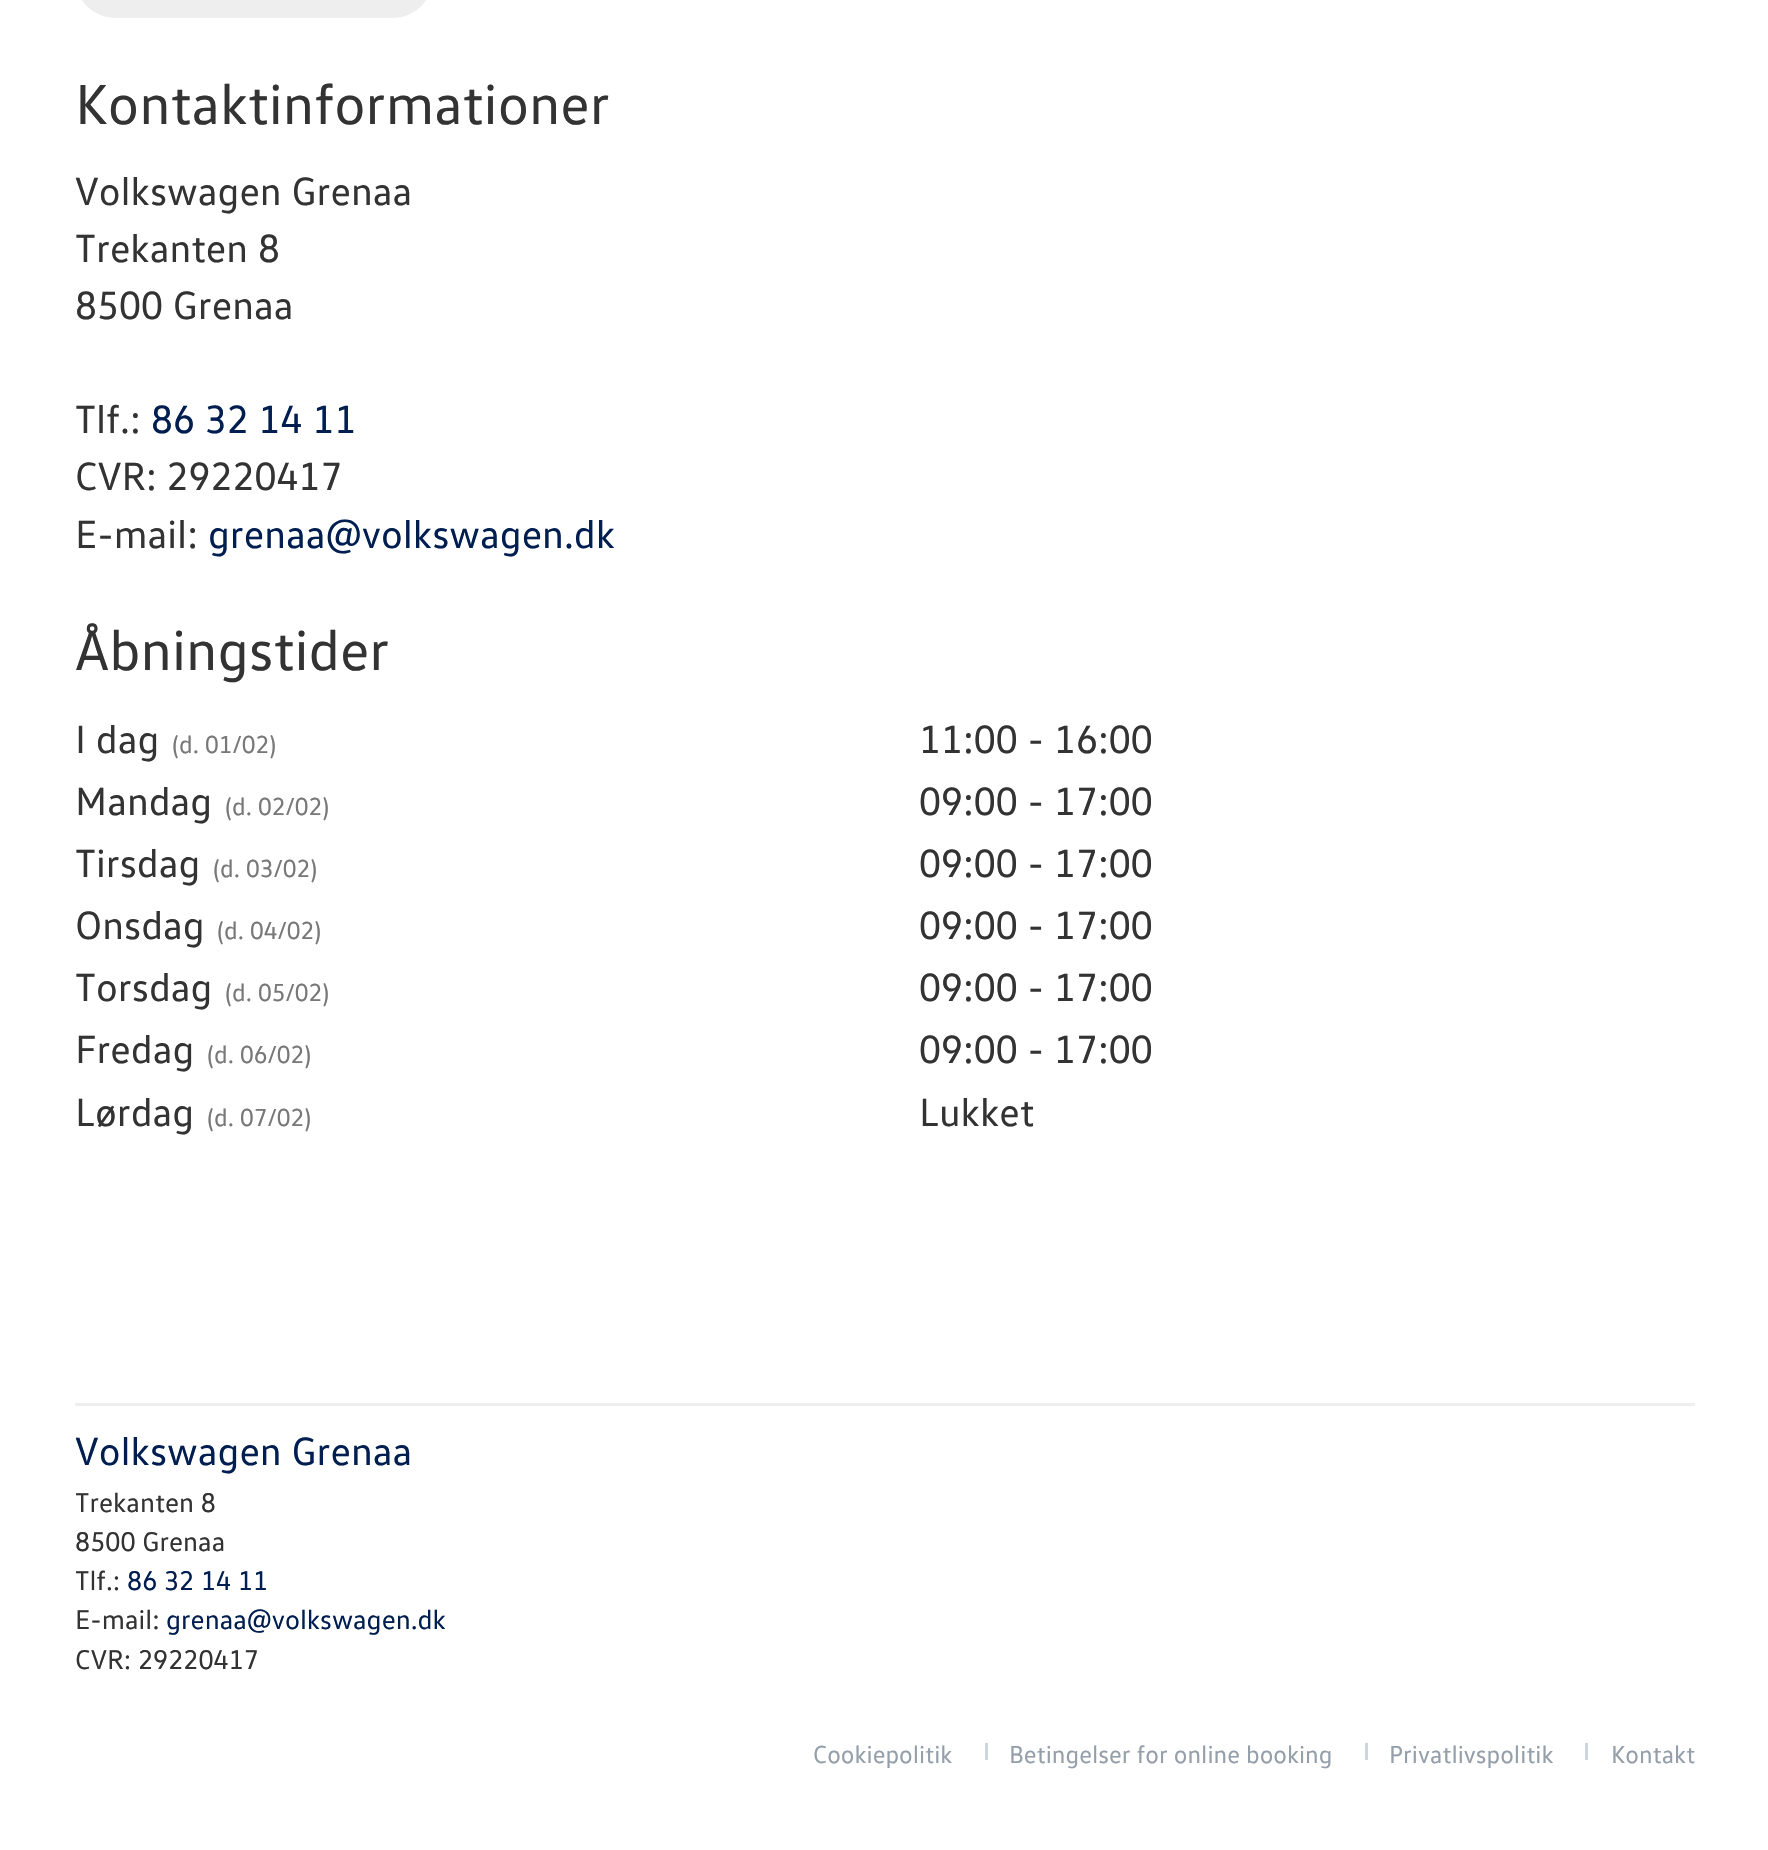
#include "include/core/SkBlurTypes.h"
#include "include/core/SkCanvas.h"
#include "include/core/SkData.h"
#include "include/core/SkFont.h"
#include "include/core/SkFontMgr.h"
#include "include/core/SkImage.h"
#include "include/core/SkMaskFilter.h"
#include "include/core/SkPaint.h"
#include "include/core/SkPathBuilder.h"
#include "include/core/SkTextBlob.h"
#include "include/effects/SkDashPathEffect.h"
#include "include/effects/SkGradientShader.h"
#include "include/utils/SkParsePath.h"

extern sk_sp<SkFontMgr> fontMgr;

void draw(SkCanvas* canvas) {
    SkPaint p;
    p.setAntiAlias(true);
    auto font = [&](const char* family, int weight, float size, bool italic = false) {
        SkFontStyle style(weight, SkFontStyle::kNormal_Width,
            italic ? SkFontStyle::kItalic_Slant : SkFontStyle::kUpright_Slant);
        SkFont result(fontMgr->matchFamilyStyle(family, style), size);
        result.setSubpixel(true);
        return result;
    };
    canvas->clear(0xFFFFFFFF);
    p.setColor(0xFFEEEEEE);
    canvas->drawRoundRect(SkRect::MakeLTRB(75, -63, 433, 18), 62.5f, 62.5f, p);
    auto font1 = font("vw", 400, 57.5f);
    p.setColor(0xFF333333);
    canvas->drawString("Kontaktinformationer", 75, 124, font1, p);
    auto font2 = font("vw", 400, 40);
    {
        const struct { const char* s; float x, y; } items[] = {
            {"Volkswagen Grenaa", 75, 205},
            {"Trekanten 8", 75, 262},
            {"8500 Grenaa", 75, 319},
            {"Tlf.:", 75, 433},
        };
        for (auto [s, x, y] : items) {
            canvas->drawString(s, x, y, font2, p);
        }
    }
    p.setColor(0xFF001E50);
    canvas->drawString("86 32 14 11", 151, 433, font2, p);
    p.setColor(0xFF333333);
    canvas->drawString("CVR: 29220417", 75, 490, font2, p);
    canvas->drawString("E-mail:", 75, 548, font2, p);
    p.setColor(0xFF001E50);
    canvas->drawString("grenaa@volkswagen.dk", 208, 548, font2, p);
    p.setColor(0xFF333333);
    canvas->drawString("Åbningstider", 75, 670, font1, p);
    canvas->drawString("I dag", 75, 753, font2, p);
    auto font3 = font("vw", 400, 25);
    p.setColor(0xFF787878);
    canvas->drawString("(d. 01/02)", 172, 753, font3, p);
    p.setColor(0xFF333333);
    canvas->drawString("11:00 - 16:00", 919, 753, font2, p);
    canvas->drawString("Mandag", 75, 815, font2, p);
    p.setColor(0xFF787878);
    canvas->drawString("(d. 02/02)", 225, 815, font3, p);
    p.setColor(0xFF333333);
    canvas->drawString("09:00 - 17:00", 919, 815, font2, p);
    canvas->drawString("Tirsdag", 75, 877, font2, p);
    p.setColor(0xFF787878);
    canvas->drawString("(d. 03/02)", 213, 877, font3, p);
    p.setColor(0xFF333333);
    canvas->drawString("09:00 - 17:00", 919, 877, font2, p);
    canvas->drawString("Onsdag", 75, 939, font2, p);
    p.setColor(0xFF787878);
    canvas->drawString("(d. 04/02)", 217, 939, font3, p);
    p.setColor(0xFF333333);
    canvas->drawString("09:00 - 17:00", 919, 939, font2, p);
    canvas->drawString("Torsdag", 75, 1001, font2, p);
    p.setColor(0xFF787878);
    canvas->drawString("(d. 05/02)", 225, 1001, font3, p);
    p.setColor(0xFF333333);
    canvas->drawString("09:00 - 17:00", 919, 1001, font2, p);
    canvas->drawString("Fredag", 75, 1063, font2, p);
    p.setColor(0xFF787878);
    canvas->drawString("(d. 06/02)", 207, 1063, font3, p);
    p.setColor(0xFF333333);
    canvas->drawString("09:00 - 17:00", 919, 1063, font2, p);
    canvas->drawString("Lørdag", 75, 1126, font2, p);
    p.setColor(0xFF787878);
    canvas->drawString("(d. 07/02)", 207, 1126, font3, p);
    p.setColor(0xFF333333);
    canvas->drawString("Lukket", 919, 1126, font2, p);
    p.setColor(0xFFEEEEEE);
    canvas->drawRect(SkRect::MakeLTRB(75, 1403, 1695, 1406), p);
    p.setColor(0xFF001E50);
    canvas->drawString("Volkswagen Grenaa", 75, 1465, font2, p);
    auto font4 = font("vw", 400, 27.5f);
    p.setColor(0xFF333333);
    {
        const struct { const char* s; float x, y; } items[] = {
            {"Trekanten 8", 75, 1512},
            {"8500 Grenaa", 75, 1551},
            {"Tlf.:", 75, 1590},
        };
        for (auto [s, x, y] : items) {
            canvas->drawString(s, x, y, font4, p);
        }
    }
    p.setColor(0xFF001E50);
    canvas->drawString("86 32 14 11", 127, 1590, font4, p);
    p.setColor(0xFF333333);
    canvas->drawString("E-mail:", 75, 1629, font4, p);
    p.setColor(0xFF001E50);
    canvas->drawString("grenaa@volkswagen.dk", 166, 1629, font4, p);
    p.setColor(0xFF333333);
    canvas->drawString("CVR: 29220417", 75, 1669, font4, p);
    p.setColor(0xFF949FAA);
    canvas->drawString("Cookiepolitik", 813, 1763, font3, p);
    p.setColor(0xFFCDD7DB);
    canvas->drawRect(SkRect::MakeLTRB(985, 1743, 988, 1760), p);
    p.setColor(0xFF949FAA);
    canvas->drawString("Betingelser for online booking", 1009, 1763, font3, p);
    p.setColor(0xFFCDD7DB);
    canvas->drawRect(SkRect::MakeLTRB(1365, 1743, 1368, 1760), p);
    p.setColor(0xFF949FAA);
    canvas->drawString("Privatlivspolitik", 1389, 1763, font3, p);
    p.setColor(0xFFCDD7DB);
    canvas->drawRect(SkRect::MakeLTRB(1585, 1743, 1588, 1760), p);
    p.setColor(0xFF949FAA);
    canvas->drawString("Kontakt", 1611, 1763, font3, p);
}
